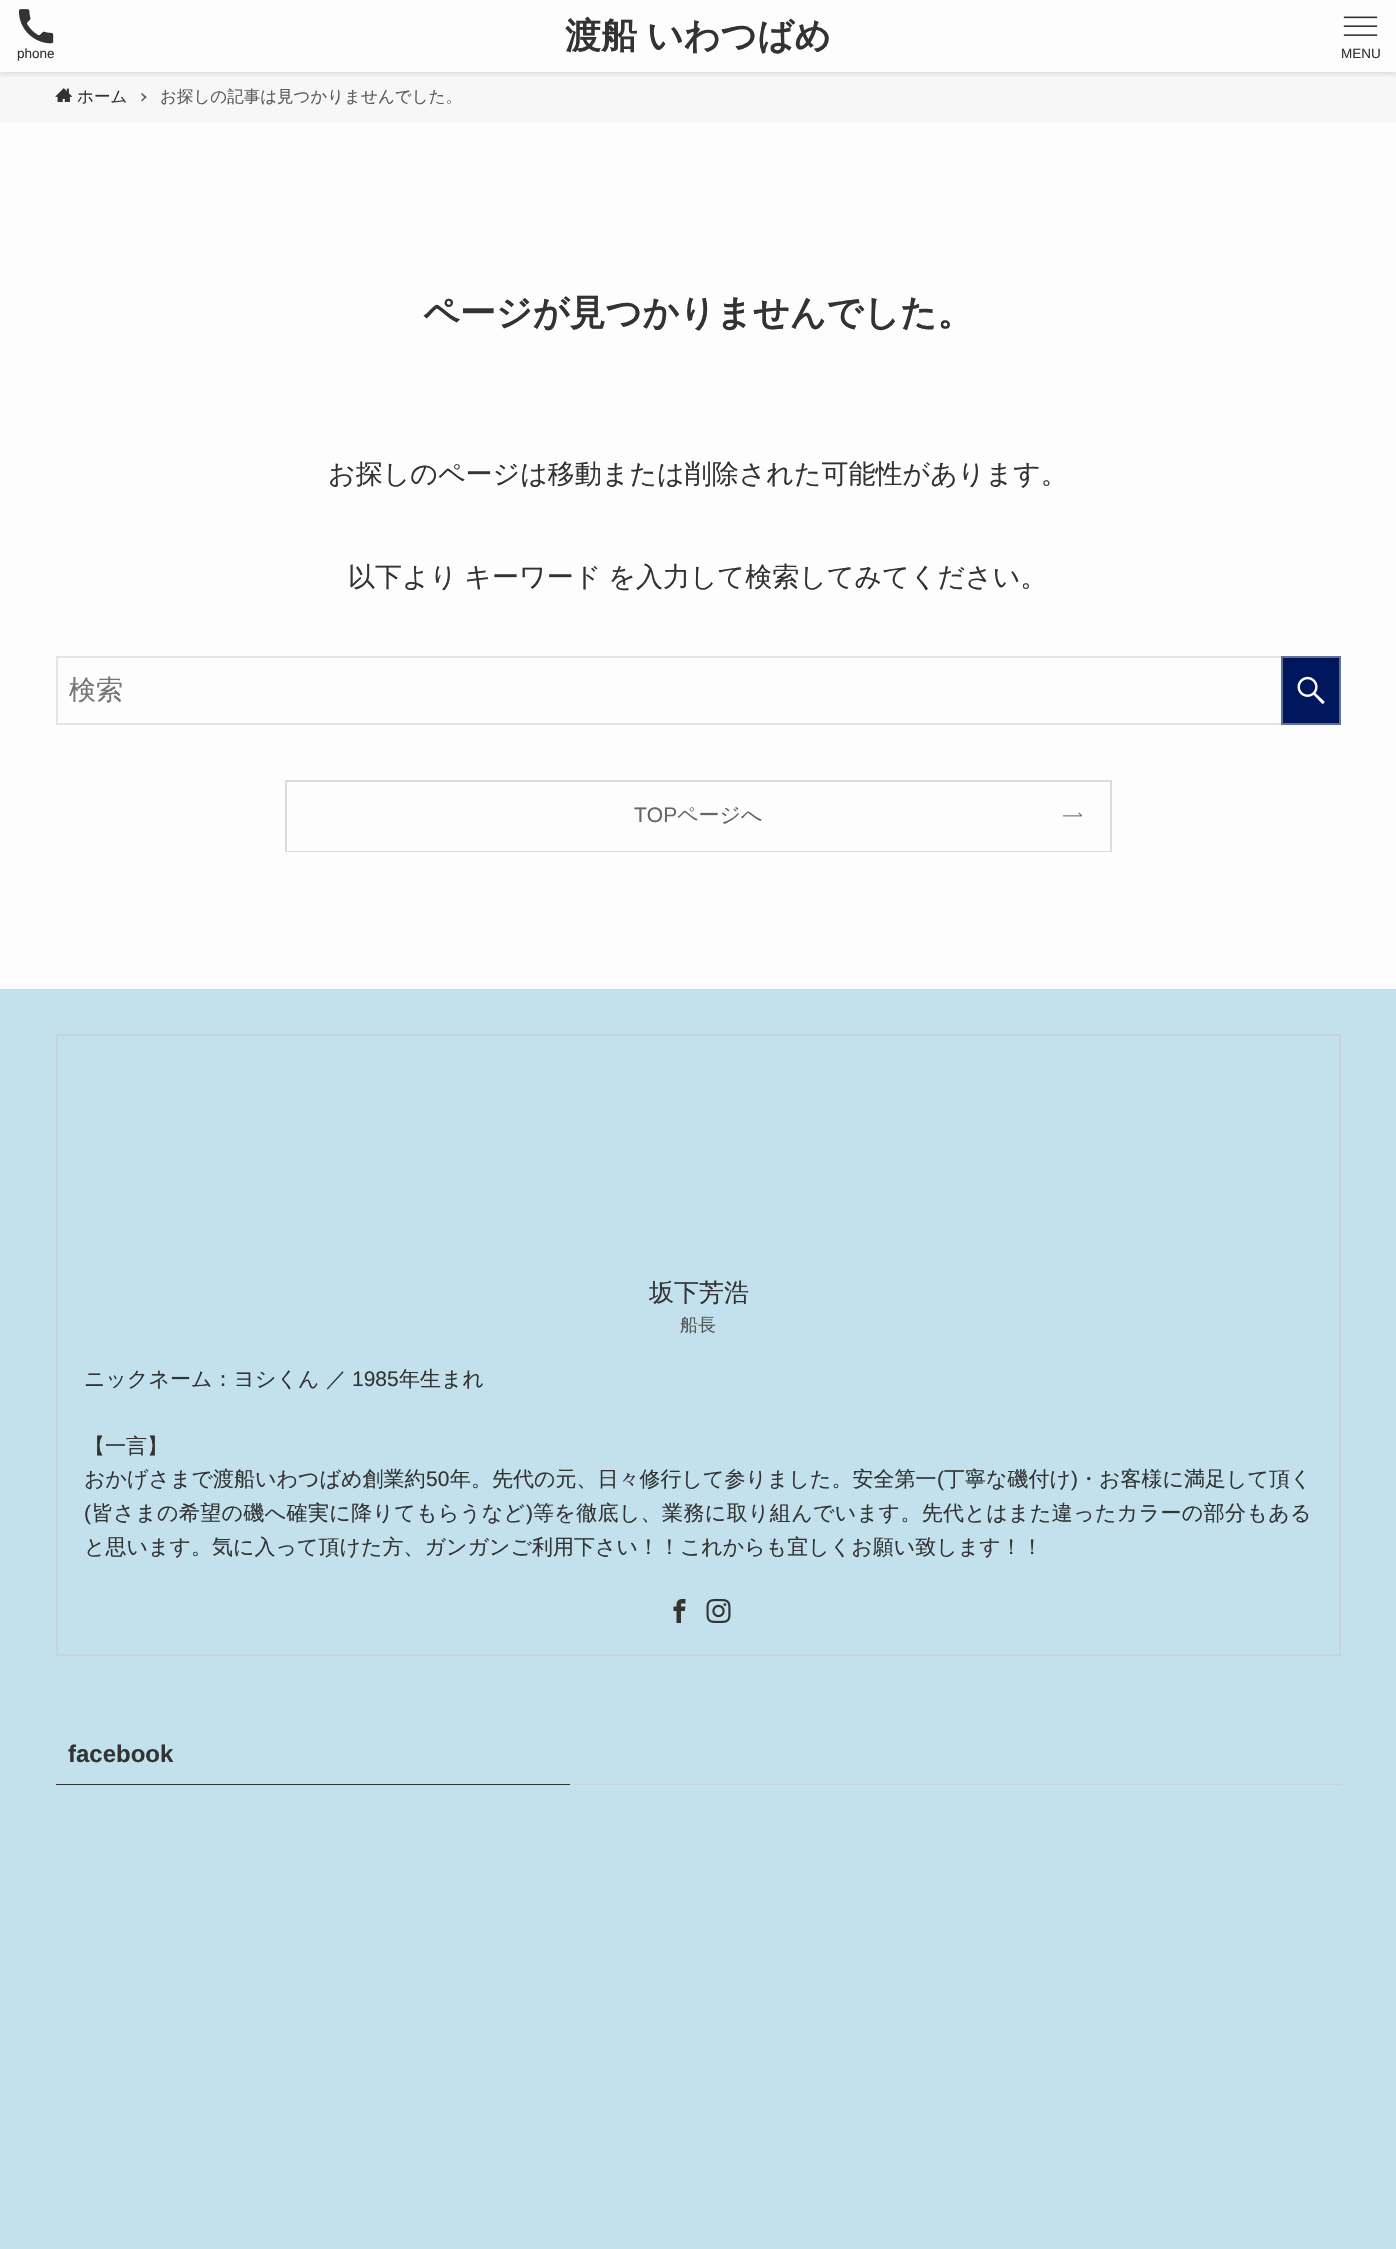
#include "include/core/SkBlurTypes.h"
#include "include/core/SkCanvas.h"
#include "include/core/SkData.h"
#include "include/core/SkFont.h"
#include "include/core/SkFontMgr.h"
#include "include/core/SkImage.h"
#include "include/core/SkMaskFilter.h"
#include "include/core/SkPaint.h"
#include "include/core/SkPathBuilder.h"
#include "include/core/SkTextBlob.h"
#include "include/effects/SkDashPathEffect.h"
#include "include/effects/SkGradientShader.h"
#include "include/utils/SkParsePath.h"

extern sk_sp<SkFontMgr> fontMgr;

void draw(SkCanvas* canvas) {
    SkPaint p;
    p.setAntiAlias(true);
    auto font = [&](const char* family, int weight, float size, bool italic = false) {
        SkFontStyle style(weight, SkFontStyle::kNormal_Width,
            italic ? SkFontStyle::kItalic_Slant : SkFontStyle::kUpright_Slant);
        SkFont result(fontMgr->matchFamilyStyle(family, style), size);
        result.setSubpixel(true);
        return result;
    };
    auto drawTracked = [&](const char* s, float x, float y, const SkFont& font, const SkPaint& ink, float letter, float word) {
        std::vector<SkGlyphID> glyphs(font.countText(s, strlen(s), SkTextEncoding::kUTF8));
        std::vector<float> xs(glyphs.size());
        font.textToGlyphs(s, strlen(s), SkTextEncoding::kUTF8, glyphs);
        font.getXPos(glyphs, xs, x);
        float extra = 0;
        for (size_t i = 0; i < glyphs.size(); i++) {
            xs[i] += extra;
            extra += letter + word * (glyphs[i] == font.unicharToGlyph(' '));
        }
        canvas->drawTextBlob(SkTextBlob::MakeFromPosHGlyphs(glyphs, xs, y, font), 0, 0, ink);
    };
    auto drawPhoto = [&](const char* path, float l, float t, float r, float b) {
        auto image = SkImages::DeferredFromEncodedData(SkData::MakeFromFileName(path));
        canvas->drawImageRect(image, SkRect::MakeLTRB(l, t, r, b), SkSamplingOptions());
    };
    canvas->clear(0xFFFDFDFD);
    p.setColor(0xFFF7F7F7);
    canvas->drawRect(SkRect::MakeLTRB(0, 72, 1396, 123), p);
    canvas->save();
    canvas->clipRect(SkRect::MakeLTRB(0, 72, 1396, 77));
    p.setColor(0x1F000000);
    p.setMaskFilter(SkMaskFilter::MakeBlur(kNormal_SkBlurStyle, 3));
    canvas->drawRect(SkRect::MakeLTRB(0, 2, 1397, 74), p);
    p.setMaskFilter(nullptr);
    canvas->restore();
    drawPhoto("media/1.png", 18, 9, 54, 44);
    auto font1 = font("Liberation Sans", 400, 13.5f);
    p.setColor(0xFF333333);
    canvas->drawString("phone", 17, 58, font1, p);
    auto font2 = font("WenQuanYi Zen Hei", 700, 36);
    drawTracked("渡船 いわつばめ", 565, 48, font2, p, 0, -1);
    drawPhoto("media/2.png", 1343, 16, 1378, 36);
    canvas->drawString("MENU", 1341, 58, font1, p);
    drawPhoto("media/3.png", 55, 88, 72, 102);
    auto font3 = font("WenQuanYi Zen Hei", 500, 16.5f);
    canvas->drawString("ホーム", 77, 102, font3, p);
    p.setColor(0xFF5A5A5A);
    canvas->drawPath(SkPathBuilder().moveTo(142, 93).lineTo(146.5f, 97).lineTo(145.5f, 98.5f).lineTo(141, 94).close().detach(), p);
    canvas->drawPath(SkPathBuilder().moveTo(145.5f, 96).lineTo(146.5f, 97).lineTo(142, 101.5f).lineTo(141, 100.5f).close().detach(), p);
    canvas->drawString("お探しの記事は見つかりませんでした。", 160, 102, font3, p);
    p.setColor(0xFF333333);
    canvas->drawString("ページが見つかりませんでした。", 423, 325, font2, p);
    auto font4 = font("WenQuanYi Zen Hei", 500, 27);
    canvas->drawString("お探しのページは移動または削除された可能性があります。", 328, 483, font4, p);
    drawTracked("以下より キーワード を入力して検索してみてください。", 348, 586, font4, p, 0, -1);
    p.setStyle(SkPaint::kStroke_Style);
    p.setStrokeWidth(2);
    p.setColor(0xFFE4E4E4);
    canvas->drawRect(SkRect::MakeLTRB(57, 657, 1340, 724), p);
    p.setStyle(SkPaint::kFill_Style);
    p.setColor(0xFF757575);
    canvas->drawString("検索", 69, 699, font4, p);
    p.setColor(0xFF00175E);
    canvas->drawRect(SkRect::MakeLTRB(1282, 657, 1340, 724), p);
    p.setStyle(SkPaint::kStroke_Style);
    p.setColor(0xFF647093);
    canvas->drawRect(SkRect::MakeLTRB(1282, 657, 1340, 724), p);
    drawPhoto("media/4.png", 1297, 676, 1325, 704);
    p.setColor(0xFFDCDCDC);
    canvas->drawRect(SkRect::MakeLTRB(286, 781, 1111, 851), p);
    p.setStyle(SkPaint::kFill_Style);
    p.setColor(0xFFFFFFFF);
    canvas->drawRect(SkRect::MakeLTRB(287, 850, 1110, 851), p);
    auto font5 = font("Liberation Sans", 400, 21);
    p.setColor(0xFF666666);
    canvas->drawString("TOP", 634, 822, font5, p);
    auto font6 = font("WenQuanYi Zen Hei", 500, 21);
    canvas->drawString("ページへ", 677, 822, font6, p);
    drawPhoto("media/5.png", 1063, 812, 1082, 817);
    p.setColor(0xFFC2E1ED);
    canvas->drawRect(SkRect::MakeLTRB(0, 989, 1396, 2249), p);
    p.setStyle(SkPaint::kStroke_Style);
    p.setColor(0xFFC5D5DB);
    canvas->drawRect(SkRect::MakeLTRB(57, 1035, 1340, 1655), p);
    auto font7 = font("WenQuanYi Zen Hei", 500, 25);
    p.setStyle(SkPaint::kFill_Style);
    p.setColor(0xFF333333);
    canvas->drawString("坂下芳浩", 649, 1301, font7, p);
    auto font8 = font("WenQuanYi Zen Hei", 500, 18);
    p.setColor(0xFF505658);
    canvas->drawString("船長", 680, 1331, font8, p);
    p.setColor(0xFF333333);
    canvas->drawString("ニックネーム：ヨシくん ／", 84, 1386, font6, p);
    canvas->drawString("1985", 352, 1386, font5, p);
    {
        const struct { const char* s; float x, y; } items[] = {
            {"年生まれ", 399, 1386},
            {"【一言】", 84, 1453},
            {"おかげさまで渡船いわつばめ創業約", 84, 1486},
        };
        for (auto [s, x, y] : items) {
            canvas->drawString(s, x, y, font6, p);
        }
    }
    canvas->drawString("50", 426, 1486, font5, p);
    canvas->drawString("年。先代の元、日々修行して参りました。安全第一", 450, 1486, font6, p);
    canvas->drawString("(", 937, 1486, font5, p);
    canvas->drawString("丁寧な磯付け", 944, 1486, font6, p);
    canvas->drawString(")", 1071, 1486, font5, p);
    canvas->drawString("・お客様に満足して頂く", 1078, 1486, font6, p);
    drawTracked("(", 84, 1520, font5, p, 0.35f, 0);
    drawTracked("皆さまの希望の磯へ確実に降りてもらうなど", 92, 1520, font6, p, 0.35f, 0);
    drawTracked(")", 526, 1520, font5, p, 0.35f, 0);
    drawTracked("等を徹底し、業務に取り組んでいます。先代とはまた違ったカラーの部分もある", 533, 1520, font6, p, 0.35f, 0);
    canvas->drawString("と思います。気に入って頂けた方、ガンガンご利用下さい！！これからも宜しくお願い致します！！", 84, 1554, font6, p);
    drawPhoto("media/6.png", 673, 1599, 686, 1623);
    drawPhoto("media/7.png", 706, 1599, 731, 1623);
    auto font9 = font("Liberation Sans", 700, 24);
    canvas->drawString("facebook", 68, 1762, font9, p);
    canvas->drawRect(SkRect::MakeLTRB(56, 1784, 570, 1785), p);
    p.setColor(0xFFC5D5DB);
    canvas->drawRect(SkRect::MakeLTRB(570, 1784, 1341, 1785), p);
}
